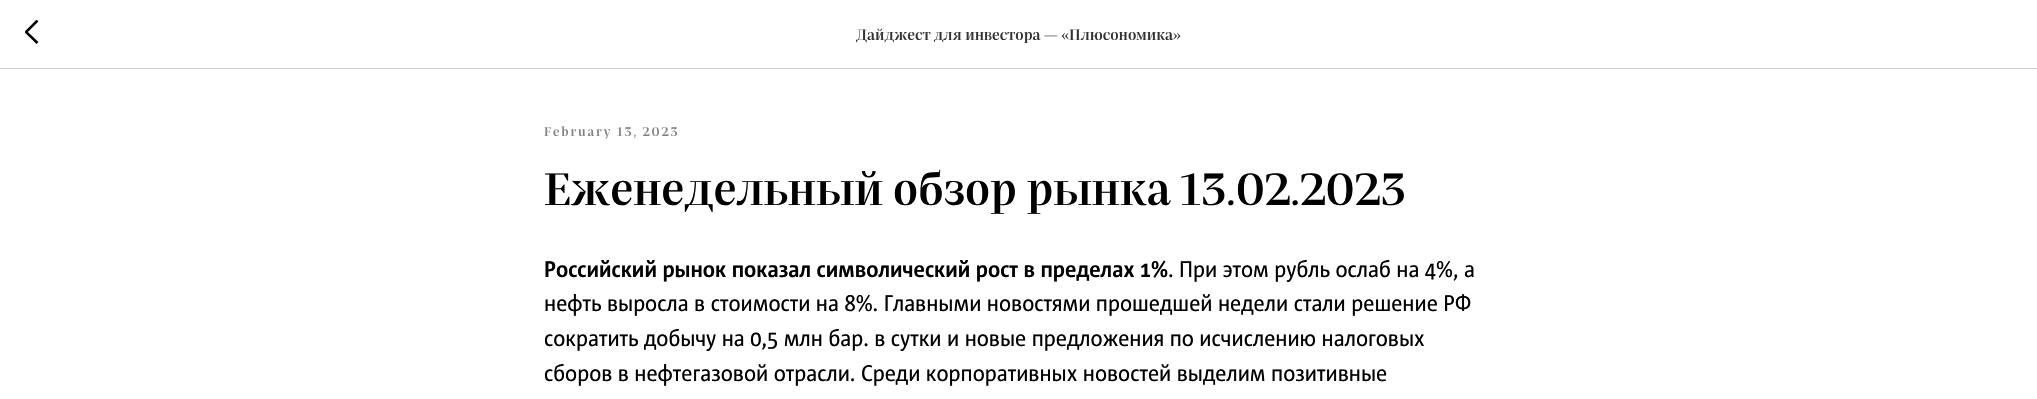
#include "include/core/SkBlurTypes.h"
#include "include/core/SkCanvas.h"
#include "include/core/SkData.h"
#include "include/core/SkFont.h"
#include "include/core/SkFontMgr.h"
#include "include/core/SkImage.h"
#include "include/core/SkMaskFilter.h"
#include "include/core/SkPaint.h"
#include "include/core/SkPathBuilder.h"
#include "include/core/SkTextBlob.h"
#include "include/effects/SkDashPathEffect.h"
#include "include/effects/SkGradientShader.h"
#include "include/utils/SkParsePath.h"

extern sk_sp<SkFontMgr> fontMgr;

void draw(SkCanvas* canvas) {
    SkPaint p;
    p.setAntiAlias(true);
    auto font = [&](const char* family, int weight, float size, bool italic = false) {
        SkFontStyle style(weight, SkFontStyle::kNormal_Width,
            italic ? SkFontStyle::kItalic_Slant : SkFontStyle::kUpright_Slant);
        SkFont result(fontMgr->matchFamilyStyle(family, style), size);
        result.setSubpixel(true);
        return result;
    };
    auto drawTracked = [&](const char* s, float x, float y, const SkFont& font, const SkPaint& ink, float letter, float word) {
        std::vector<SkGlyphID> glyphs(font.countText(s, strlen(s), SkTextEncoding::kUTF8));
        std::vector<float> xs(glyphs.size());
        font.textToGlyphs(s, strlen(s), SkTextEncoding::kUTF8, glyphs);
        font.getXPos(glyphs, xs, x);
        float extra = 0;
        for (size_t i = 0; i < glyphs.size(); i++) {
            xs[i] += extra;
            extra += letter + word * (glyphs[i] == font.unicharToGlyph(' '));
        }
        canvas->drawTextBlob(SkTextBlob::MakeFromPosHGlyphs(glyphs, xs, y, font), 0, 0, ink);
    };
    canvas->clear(0xFFFFFFFF);
    p.setColor(0xFFCCCCCC);
    canvas->drawRect(SkRect::MakeLTRB(0, 68, 2037, 69), p);
    canvas->save();
    canvas->clipRect(SkRect::MakeLTRB(25, 20, 39, 45));
    p.setStyle(SkPaint::kStroke_Style);
    p.setStrokeWidth(2.5f);
    p.setColor(0xFF000000);
    canvas->drawPath(SkPathBuilder().moveTo(37.5f, 43).lineTo(26, 32).lineTo(37.5f, 20.5f).detach(), p);
    canvas->restore();
    auto font1 = font("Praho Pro", 500, 15);
    p.setStyle(SkPaint::kFill_Style);
    p.setColor(0xFF333333);
    canvas->drawString("Дайджест для инвестора — «Плюсономика»", 856, 40, font1, p);
    auto font2 = font("Praho Pro", 500, 12.5f);
    p.setColor(0xFF808080);
    drawTracked("February 13, 2023", 544, 136, font2, p, 1.9f, 0);
    auto font3 = font("Praho Pro", 500, 45);
    p.setColor(0xFF000000);
    canvas->drawString("Еженедельный обзор рынка 13.02.2023", 544, 205, font3, p);
    auto font4 = font("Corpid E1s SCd", 700, 22.5f);
    canvas->drawString("Российский рынок показал символический рост в пределах 1%", 544, 277, font4, p);
    auto font5 = font("Corpid E1s SCd", 400, 22.5f);
    {
        const struct { const char* s; float x, y; } items[] = {
            {". При этом рубль ослаб на 4%, а", 1168, 277},
            {"нефть выросла в стоимости на 8%. Главными новостями прошедшей недели стали решение РФ", 544, 311},
            {"сократить добычу на 0,5 млн бар. в сутки и новые предложения по исчислению налоговых", 544, 346},
            {"сборов в нефтегазовой отрасли. Среди корпоративных новостей выделим позитивные", 544, 381},
        };
        for (auto [s, x, y] : items) {
            canvas->drawString(s, x, y, font5, p);
        }
    }
}
